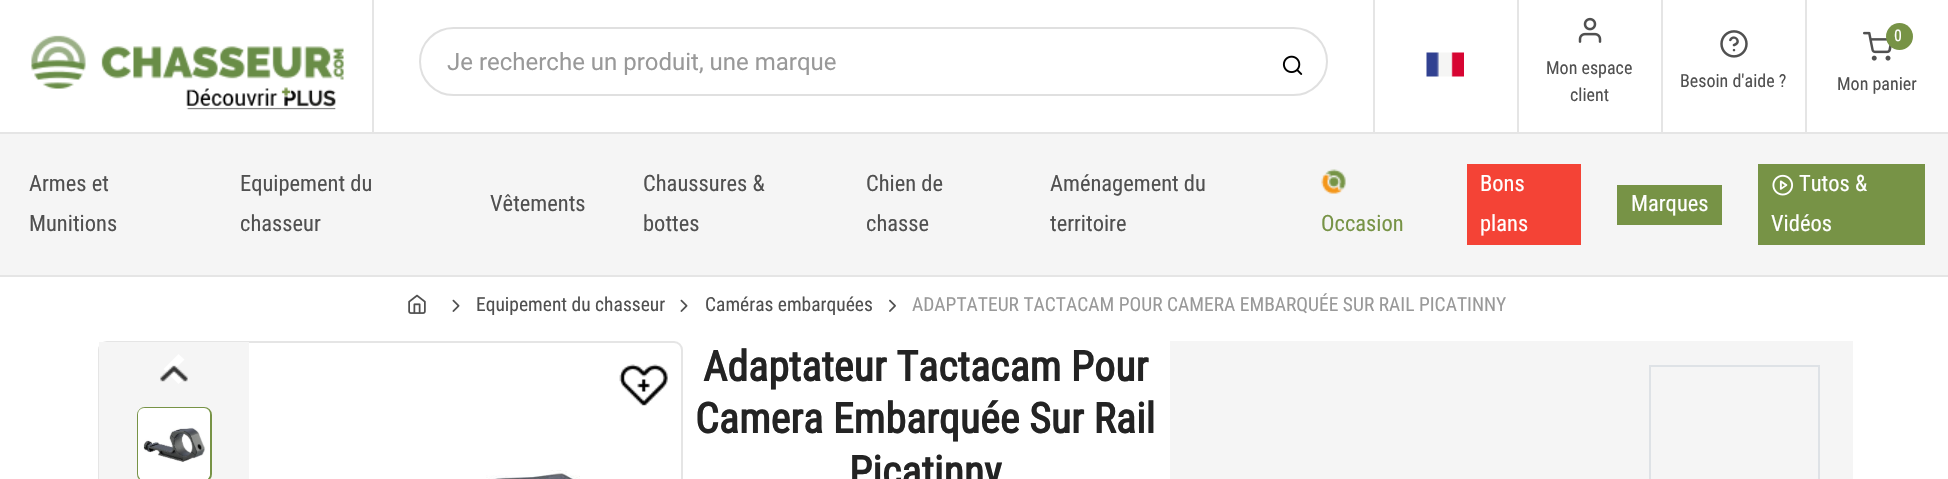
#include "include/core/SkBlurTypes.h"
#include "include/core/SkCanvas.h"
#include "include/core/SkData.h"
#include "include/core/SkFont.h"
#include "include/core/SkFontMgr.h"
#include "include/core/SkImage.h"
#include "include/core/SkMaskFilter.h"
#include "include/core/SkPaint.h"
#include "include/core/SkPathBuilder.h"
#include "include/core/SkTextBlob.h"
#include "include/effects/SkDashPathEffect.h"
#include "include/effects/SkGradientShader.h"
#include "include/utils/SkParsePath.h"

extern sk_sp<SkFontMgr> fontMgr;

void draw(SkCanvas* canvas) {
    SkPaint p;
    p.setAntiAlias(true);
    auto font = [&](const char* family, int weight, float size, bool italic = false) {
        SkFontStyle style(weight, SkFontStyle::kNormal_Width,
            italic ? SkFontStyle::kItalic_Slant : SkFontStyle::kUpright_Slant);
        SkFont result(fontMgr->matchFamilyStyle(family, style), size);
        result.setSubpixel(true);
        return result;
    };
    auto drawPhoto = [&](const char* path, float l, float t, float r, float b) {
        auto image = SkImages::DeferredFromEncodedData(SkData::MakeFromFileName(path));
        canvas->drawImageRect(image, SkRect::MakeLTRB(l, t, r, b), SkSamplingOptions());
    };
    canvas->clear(0xFFFFFFFF);
    p.setColor(0xFFE5E5E5);
    canvas->drawRect(SkRect::MakeLTRB(0, 132, 1948, 134), p);
    canvas->drawRect(SkRect::MakeLTRB(372, 0, 374, 132), p);
    drawPhoto("media/1.png", 31, 35, 344, 89);
    drawPhoto("media/2.png", 186, 87, 336, 110);
    p.setStyle(SkPaint::kStroke_Style);
    p.setStrokeWidth(2);
    p.setColor(0xFFE0E0E0);
    canvas->drawRoundRect(SkRect::MakeLTRB(420, 28, 1327, 95), 33.5f, 33.5f, p);
    auto font1 = font("Roboto", 400, 24);
    p.setStyle(SkPaint::kFill_Style);
    p.setColor(0xFF999999);
    canvas->drawString("Je recherche un produit, une marque", 447, 70, font1, p);
    drawPhoto("media/3.png", 1282, 55, 1303, 75);
    p.setColor(0xFFE5E5E5);
    canvas->drawRect(SkRect::MakeLTRB(1373, 0, 1375, 132), p);
    drawPhoto("media/4.png", 1426, 52, 1464, 77);
    canvas->drawRect(SkRect::MakeLTRB(1517, 0, 1519, 132), p);
    drawPhoto("media/5.png", 1578, 17, 1602, 43);
    auto font2 = font("Roboto Condensed", 400, 18);
    p.setColor(0xFF505050);
    canvas->drawString("Mon espace", 1546, 74, font2, p);
    canvas->drawString("client", 1570, 101, font2, p);
    p.setColor(0xFFE5E5E5);
    canvas->drawRect(SkRect::MakeLTRB(1661, 0, 1663, 132), p);
    drawPhoto("media/6.png", 1720, 30, 1748, 58);
    p.setColor(0xFF505050);
    canvas->drawString("Besoin d'aide ?", 1680, 87, font2, p);
    p.setColor(0xFFE5E5E5);
    canvas->drawRect(SkRect::MakeLTRB(1805, 0, 1807, 132), p);
    drawPhoto("media/7.png", 1863, 31, 1892, 61);
    p.setColor(0xFF779346);
    canvas->drawCircle(1899.5f, 36.5f, 13.5f, p);
    auto font3 = font("Roboto Condensed", 400, 16);
    p.setColor(0xFFFFFFFF);
    canvas->drawString("0", 1894, 41, font3, p);
    p.setColor(0xFF505050);
    canvas->drawString("Mon panier", 1837, 90, font2, p);
    p.setColor(0xFFF5F5F5);
    canvas->drawRect(SkRect::MakeLTRB(0, 134, 1948, 275), p);
    p.setColor(0xFFE5E5E5);
    canvas->drawRect(SkRect::MakeLTRB(0, 275, 1948, 277), p);
    auto font4 = font("Roboto Condensed", 400, 22.5f);
    p.setColor(0xFF505050);
    {
        const struct { const char* s; float x, y; } items[] = {
            {"Armes et", 29, 191},
            {"Munitions", 29, 231},
            {"Equipement du", 240, 191},
            {"chasseur", 240, 231},
            {"Vêtements", 490, 211},
            {"Chaussures &", 643, 191},
            {"bottes", 643, 231},
            {"Chien de", 866, 191},
            {"chasse", 866, 231},
            {"Aménagement du", 1050, 191},
            {"territoire", 1050, 231},
        };
        for (auto [s, x, y] : items) {
            canvas->drawString(s, x, y, font4, p);
        }
    }
    p.setColor(0xFFF44336);
    canvas->drawRect(SkRect::MakeLTRB(1467, 164, 1581, 245), p);
    p.setColor(0xFFFFFFFF);
    canvas->drawString("Bons", 1480, 191, font4, p);
    canvas->drawString("plans", 1480, 231, font4, p);
    p.setColor(0xFF779346);
    canvas->drawRect(SkRect::MakeLTRB(1617, 185, 1722, 225), p);
    p.setColor(0xFFFFFFFF);
    canvas->drawString("Marques", 1631, 211, font4, p);
    p.setColor(0xFF779346);
    canvas->drawRect(SkRect::MakeLTRB(1758, 164, 1925, 245), p);
    drawPhoto("media/8.png", 1772, 174, 1794, 196);
    p.setColor(0xFFFFFFFF);
    canvas->drawString("Tutos &", 1799, 191, font4, p);
    canvas->drawString("Vidéos", 1771, 231, font4, p);
    drawPhoto("media/9.png", 1321, 169, 1346, 194);
    p.setColor(0xFF779346);
    canvas->drawString("Occasion", 1321, 231, font4, p);
    drawPhoto("media/10.png", 408, 294, 426, 314);
    drawPhoto("media/11.png", 452, 299, 460, 312);
    auto font5 = font("Roboto Condensed", 400, 19.5f);
    p.setColor(0xFF505050);
    canvas->drawString("Equipement du chasseur", 476, 311, font5, p);
    drawPhoto("media/11.png", 680, 299, 688, 312);
    canvas->drawString("Caméras embarquées", 705, 311, font5, p);
    drawPhoto("media/12.png", 889, 299, 896, 312);
    p.setColor(0xFF999999);
    canvas->drawString("ADAPTATEUR TACTACAM POUR CAMERA EMBARQUÉE SUR RAIL PICATINNY", 912, 311, font5, p);
    p.setStyle(SkPaint::kStroke_Style);
    p.setColor(0xFFE5E5E5);
    canvas->drawRoundRect(SkRect::MakeLTRB(99, 342, 682, 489), 8, 8, p);
    p.setStyle(SkPaint::kFill_Style);
    p.setColor(0xFFF5F5F5);
    canvas->drawRect(SkRect::MakeLTRB(99, 342, 249, 479), p);
    p.setColor(0xFFFFFFFF);
    canvas->drawPath(SkPathBuilder().moveTo(178.5f, 354).lineTo(163.5f, 369).lineTo(178.5f, 384).lineTo(184.5f, 378.5f).lineTo(175, 369).lineTo(184.5f, 359.5f).close().detach(), p);
    drawPhoto("media/13.png", 160, 365, 188, 382);
    canvas->drawRoundRect(SkRect::MakeLTRB(138, 408, 211, 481), 7, 7, p);
    p.setStyle(SkPaint::kStroke_Style);
    p.setColor(0xFF779346);
    canvas->drawRoundRect(SkRect::MakeLTRB(138, 408, 211, 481), 7, 7, p);
    drawPhoto("media/14.png", 138, 408, 210, 479);
    drawPhoto("media/15.png", 619, 364, 668, 406);
    drawPhoto("media/16.png", 486, 470, 580, 479);
    auto font6 = font("Roboto Condensed", 700, 42);
    p.setStyle(SkPaint::kFill_Style);
    p.setColor(0xFF232323);
    {
        const struct { const char* s; float x, y; } items[] = {
            {"Adaptateur Tactacam Pour", 703, 381},
            {"Camera Embarquée Sur Rail", 695, 433},
            {"Picatinny", 849, 486},
        };
        for (auto [s, x, y] : items) {
            canvas->drawString(s, x, y, font6, p);
        }
    }
    p.setColor(0xFFF5F5F5);
    canvas->drawRect(SkRect::MakeLTRB(1170, 341, 1853, 479), p);
    p.setStyle(SkPaint::kStroke_Style);
    p.setColor(0xFFDEE2E6);
    canvas->drawRect(SkRect::MakeLTRB(1650, 366, 1819, 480), p);
}
